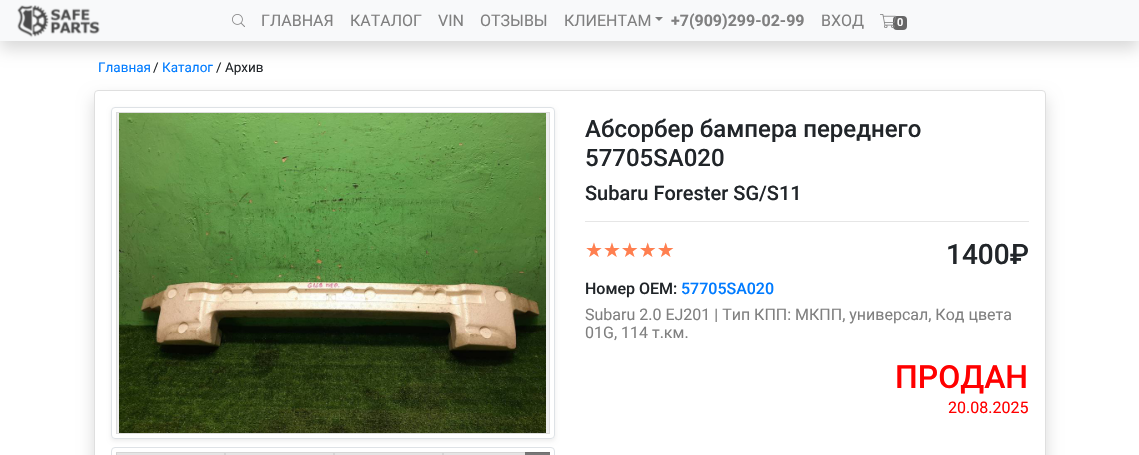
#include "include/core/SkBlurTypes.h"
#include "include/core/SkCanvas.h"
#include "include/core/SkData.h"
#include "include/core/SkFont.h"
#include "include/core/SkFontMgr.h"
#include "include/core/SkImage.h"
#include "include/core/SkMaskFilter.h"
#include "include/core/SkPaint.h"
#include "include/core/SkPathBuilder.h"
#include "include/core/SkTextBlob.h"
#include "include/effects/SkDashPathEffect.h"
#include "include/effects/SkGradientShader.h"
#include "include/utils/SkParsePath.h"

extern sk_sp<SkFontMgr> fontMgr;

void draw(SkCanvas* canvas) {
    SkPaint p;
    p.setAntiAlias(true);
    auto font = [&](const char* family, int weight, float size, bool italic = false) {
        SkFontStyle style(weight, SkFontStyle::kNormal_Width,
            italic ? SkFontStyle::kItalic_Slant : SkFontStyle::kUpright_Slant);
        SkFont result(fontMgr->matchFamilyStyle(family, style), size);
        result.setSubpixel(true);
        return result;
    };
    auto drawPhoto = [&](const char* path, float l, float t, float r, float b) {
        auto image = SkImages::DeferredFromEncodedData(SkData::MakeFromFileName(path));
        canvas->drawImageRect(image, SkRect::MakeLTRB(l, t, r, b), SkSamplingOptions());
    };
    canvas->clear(0xFFFFFFFF);
    p.setColor(0x26000000);
    p.setMaskFilter(SkMaskFilter::MakeBlur(kNormal_SkBlurStyle, 8));
    canvas->drawRect(SkRect::MakeLTRB(0, 8, 1139, 49), p);
    p.setMaskFilter(nullptr);
    p.setColor(0xFFF8F9FA);
    canvas->drawRect(SkRect::MakeLTRB(0, 0, 1139, 41), p);
    drawPhoto("media/1.png", 17, 5, 100, 38);
    drawPhoto("media/2.png", 232, 14, 245, 27);
    auto font1 = font("Roboto", 400, 16);
    p.setColor(0xFF808080);
    {
        const struct { const char* s; float x, y; } items[] = {
            {"ГЛАВНАЯ", 261, 26},
            {"КАТАЛОГ", 350, 26},
            {"VIN", 438, 26},
            {"ОТЗЫВЫ", 480, 26},
            {"КЛИЕНТАМ", 564, 26},
        };
        for (auto [s, x, y] : items) {
            canvas->drawString(s, x, y, font1, p);
        }
    }
    p.setColor(0xFF7C7D7D);
    canvas->drawPath(SkPathBuilder().moveTo(655, 17).lineTo(663, 17).lineTo(659, 21).close().detach(), p);
    auto font2 = font("Roboto", 700, 16);
    p.setColor(0xFF808080);
    canvas->drawString("+7(909)299-02-99", 671, 26, font2, p);
    canvas->drawString("ВХОД", 821, 26, font1, p);
    p.setColor(0xFF666666);
    canvas->drawRoundRect(SkRect::MakeLTRB(893, 16, 907, 30), 4, 4, p);
    drawPhoto("media/3.png", 880, 14, 896, 28);
    auto font3 = font("Roboto", 600, 11);
    p.setColor(0xFFFFFFFF);
    canvas->drawString("0", 897, 26, font3, p);
    auto font4 = font("Roboto", 400, 13.5f);
    p.setColor(0xFF007BFF);
    canvas->drawString("Главная", 98, 72, font4, p);
    p.setColor(0xFF212529);
    canvas->drawString("/", 153, 72, font4, p);
    p.setColor(0xFF007BFF);
    canvas->drawString("Каталог", 162, 72, font4, p);
    p.setColor(0xFF212529);
    canvas->drawString("/ Архив", 216, 72, font4, p);
    canvas->save();
    canvas->clipPath(SkPathBuilder(SkPathFillType::kEvenOdd).moveTo(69, 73).lineTo(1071, 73).lineTo(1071, 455).lineTo(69, 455).close().moveTo(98, 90).lineTo(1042, 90).cubicTo(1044, 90, 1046, 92, 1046, 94).lineTo(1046, 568).cubicTo(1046, 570, 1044, 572, 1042, 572).lineTo(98, 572).cubicTo(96, 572, 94, 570, 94, 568).lineTo(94, 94).cubicTo(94, 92, 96, 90, 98, 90).close().detach(), true);
    p.setColor(0x26000000);
    p.setMaskFilter(SkMaskFilter::MakeBlur(kNormal_SkBlurStyle, 8));
    canvas->drawRoundRect(SkRect::MakeLTRB(94, 98, 1046, 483), 4, 4, p);
    p.setMaskFilter(nullptr);
    canvas->restore();
    p.setStyle(SkPaint::kStroke_Style);
    p.setStrokeWidth(1);
    p.setColor(0xFFDFDFDF);
    canvas->drawRoundRect(SkRect::MakeLTRB(94.5f, 90.5f, 1045.5f, 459.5f), 3.5f, 3.5f, p);
    canvas->save();
    canvas->clipPath(SkPathBuilder(SkPathFillType::kEvenOdd).moveTo(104, 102).lineTo(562, 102).lineTo(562, 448).lineTo(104, 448).close().moveTo(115, 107).lineTo(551, 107).cubicTo(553, 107, 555, 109, 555, 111).lineTo(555, 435).cubicTo(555, 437, 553, 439, 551, 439).lineTo(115, 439).cubicTo(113, 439, 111, 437, 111, 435).lineTo(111, 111).cubicTo(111, 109, 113, 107, 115, 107).close().detach(), true);
    p.setStyle(SkPaint::kFill_Style);
    p.setColor(0x12000000);
    p.setMaskFilter(SkMaskFilter::MakeBlur(kNormal_SkBlurStyle, 2));
    canvas->drawRoundRect(SkRect::MakeLTRB(111, 109, 555, 441), 4, 4, p);
    p.setMaskFilter(nullptr);
    canvas->restore();
    p.setStyle(SkPaint::kStroke_Style);
    p.setColor(0xFFDEE2E6);
    canvas->drawRoundRect(SkRect::MakeLTRB(111.5f, 107.5f, 554.5f, 438.5f), 3.5f, 3.5f, p);
    p.setStyle(SkPaint::kFill_Style);
    p.setColor(0xFFEEEEEE);
    canvas->drawRect(SkRect::MakeLTRB(116.5f, 112.5f, 549.5f, 433.5f), p);
    p.setStyle(SkPaint::kStroke_Style);
    p.setColor(0xFFDDDDDD);
    canvas->drawRect(SkRect::MakeLTRB(116.5f, 112.5f, 549.5f, 433.5f), p);
    drawPhoto("media/4.png", 119, 113, 546, 433);
    p.setColor(0xFFDEE2E6);
    canvas->drawRoundRect(SkRect::MakeLTRB(111.5f, 447.5f, 554.5f, 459.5f), 3.5f, 3.5f, p);
    p.setStyle(SkPaint::kFill_Style);
    p.setColor(0xFFE5E5E5);
    canvas->drawRect(SkRect::MakeLTRB(116.5f, 452.5f, 224.5f, 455.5f), p);
    p.setStyle(SkPaint::kStroke_Style);
    p.setColor(0xFFD5D5D5);
    canvas->drawRect(SkRect::MakeLTRB(116.5f, 452.5f, 224.5f, 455.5f), p);
    p.setStyle(SkPaint::kFill_Style);
    p.setColor(0xFFE5E5E5);
    canvas->drawRect(SkRect::MakeLTRB(225.5f, 452.5f, 333.5f, 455.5f), p);
    p.setStyle(SkPaint::kStroke_Style);
    p.setColor(0xFFD5D5D5);
    canvas->drawRect(SkRect::MakeLTRB(225.5f, 452.5f, 333.5f, 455.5f), p);
    p.setStyle(SkPaint::kFill_Style);
    p.setColor(0xFFE5E5E5);
    canvas->drawRect(SkRect::MakeLTRB(334.5f, 452.5f, 442.5f, 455.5f), p);
    p.setStyle(SkPaint::kStroke_Style);
    p.setColor(0xFFD5D5D5);
    canvas->drawRect(SkRect::MakeLTRB(334.5f, 452.5f, 442.5f, 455.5f), p);
    p.setStyle(SkPaint::kFill_Style);
    p.setColor(0xFFE5E5E5);
    canvas->drawRect(SkRect::MakeLTRB(443, 453, 550, 455), p);
    canvas->save();
    canvas->clipRect(SkRect::MakeLTRB(116, 452, 550, 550));
    p.setStyle(SkPaint::kStroke_Style);
    p.setColor(0xFFD5D5D5);
    canvas->drawRect(SkRect::MakeLTRB(443.5f, 452.5f, 551.5f, 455.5f), p);
    canvas->restore();
    p.setStyle(SkPaint::kFill_Style);
    p.setColor(0x7A000000);
    canvas->drawRect(SkRect::MakeLTRB(525, 452, 550, 455), p);
    auto font5 = font("Roboto", 500, 24);
    p.setColor(0xFF212529);
    canvas->drawString("Абсорбер бампера переднего", 585, 137, font5, p);
    canvas->drawString("57705SA020", 585, 166, font5, p);
    auto font6 = font("Roboto", 500, 20);
    canvas->drawString("Subaru Forester SG/S11", 585, 200, font6, p);
    p.setColor(0xFFE6E6E6);
    canvas->drawRect(SkRect::MakeLTRB(585, 221, 1029, 222), p);
    auto font7 = font("DejaVu Sans", 400, 20);
    p.setColor(0xFFFF7F50);
    canvas->drawString("★★★★★", 585, 257, font7, p);
    auto font8 = font("Roboto", 500, 28);
    p.setColor(0xFF212529);
    canvas->drawString("1400₽", 946, 264, font8, p);
    auto font9 = font("Roboto", 500, 16);
    canvas->drawString("Номер OEM:", 585, 294, font9, p);
    p.setColor(0xFF007BFF);
    canvas->drawString("57705SA020", 681, 294, font9, p);
    p.setColor(0xFF808080);
    canvas->drawString("Subaru 2.0 EJ201 | Тип КПП: МКПП, универсал, Код цвета", 585, 320, font1, p);
    canvas->drawString("01G, 114 т.км.", 585, 338, font1, p);
    auto font10 = font("Roboto", 500, 32);
    p.setColor(0xFFFF0000);
    canvas->drawString("ПРОДАН", 895, 388, font10, p);
    canvas->drawString("20.08.2025", 948, 413, font1, p);
}
